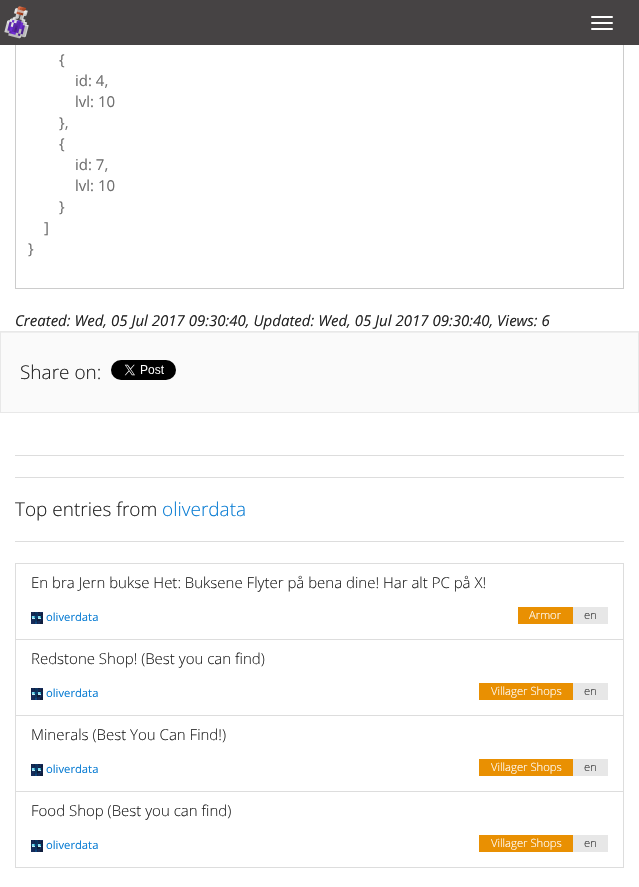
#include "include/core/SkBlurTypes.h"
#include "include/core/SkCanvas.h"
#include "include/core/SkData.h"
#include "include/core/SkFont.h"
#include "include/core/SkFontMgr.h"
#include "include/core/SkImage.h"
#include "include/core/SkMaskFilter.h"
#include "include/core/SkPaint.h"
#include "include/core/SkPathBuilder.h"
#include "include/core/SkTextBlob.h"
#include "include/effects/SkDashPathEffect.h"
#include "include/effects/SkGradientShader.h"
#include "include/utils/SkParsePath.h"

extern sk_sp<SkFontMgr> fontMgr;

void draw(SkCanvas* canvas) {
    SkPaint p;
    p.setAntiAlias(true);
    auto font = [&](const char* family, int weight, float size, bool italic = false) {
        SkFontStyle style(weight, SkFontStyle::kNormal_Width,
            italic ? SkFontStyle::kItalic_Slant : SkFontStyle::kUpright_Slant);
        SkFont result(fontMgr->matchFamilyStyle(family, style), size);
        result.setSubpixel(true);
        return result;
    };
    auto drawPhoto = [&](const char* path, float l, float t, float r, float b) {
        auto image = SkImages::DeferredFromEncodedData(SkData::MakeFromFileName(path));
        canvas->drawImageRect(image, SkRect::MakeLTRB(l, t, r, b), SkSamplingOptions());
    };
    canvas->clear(0xFFFFFFFF);
    p.setStyle(SkPaint::kStroke_Style);
    p.setStrokeWidth(1);
    p.setColor(0xFFCCCCCC);
    canvas->drawRect(SkRect::MakeLTRB(15.5f, -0.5f, 623.5f, 288.5f), p);
    p.setStyle(SkPaint::kFill_Style);
    p.setColor(0xFF464344);
    canvas->drawRect(SkRect::MakeLTRB(0, 0, 639, 45), p);
    drawPhoto("media/1.png", 4, 6, 29, 39);
    p.setColor(0xFFFFFFFF);
    canvas->drawRoundRect(SkRect::MakeLTRB(591, 16, 613, 18), 1, 1, p);
    canvas->drawRoundRect(SkRect::MakeLTRB(591, 22, 613, 24), 1, 1, p);
    canvas->drawRoundRect(SkRect::MakeLTRB(591, 28, 613, 30), 1, 1, p);
    auto font1 = font("Open Sans", 400, 15);
    p.setColor(0xFF6F6F6F);
    {
        const struct { const char* s; float x, y; } items[] = {
            {"{", 59, 65},
            {"id: 4,", 75, 86},
            {"lvl: 10", 75, 107},
            {"},", 59, 128},
            {"{", 59, 149},
            {"id: 7,", 75, 170},
            {"lvl: 10", 75, 191},
            {"}", 59, 212},
            {"]", 44, 233},
            {"}", 28, 254},
        };
        for (auto [s, x, y] : items) {
            canvas->drawString(s, x, y, font1, p);
        }
    }
    auto font2 = font("Open Sans", 400, 15, true);
    p.setColor(0xFF222222);
    canvas->drawString("Created: Wed, 05 Jul 2017 09:30:40, Updated: Wed, 05 Jul 2017 09:30:40, Views: 6", 15, 326, font2, p);
    p.setColor(0xFFFAFAFA);
    canvas->drawRect(SkRect::MakeLTRB(1, 333, 638, 412), p);
    p.setColor(0xFFEEEEEE);
    canvas->drawRect(SkRect::MakeLTRB(1, 332, 638, 333), p);
    p.setStyle(SkPaint::kStroke_Style);
    p.setColor(0xFFE8E8E8);
    canvas->drawRect(SkRect::MakeLTRB(0.5f, 331.5f, 638.5f, 412.5f), p);
    auto font3 = font("Open Sans", 300, 19);
    p.setStyle(SkPaint::kFill_Style);
    p.setColor(0xFF222222);
    canvas->drawString("Share on:", 20, 379, font3, p);
    drawPhoto("media/2.png", 111, 360, 176, 380);
    p.setColor(0xFFDDDDDD);
    canvas->drawRect(SkRect::MakeLTRB(15, 455, 624, 456), p);
    canvas->drawRect(SkRect::MakeLTRB(15, 477, 624, 478), p);
    p.setColor(0xFF222222);
    canvas->drawString("Top entries from", 15, 516, font3, p);
    p.setColor(0xFF0C7ED4);
    canvas->drawString("oliverdata", 162, 516, font3, p);
    p.setColor(0xFFDDDDDD);
    canvas->drawRect(SkRect::MakeLTRB(15, 541, 624, 542), p);
    p.setStyle(SkPaint::kStroke_Style);
    canvas->drawRect(SkRect::MakeLTRB(15.5f, 563.5f, 623.5f, 639.5f), p);
    auto font4 = font("Open Sans", 300, 15);
    p.setStyle(SkPaint::kFill_Style);
    p.setColor(0xFF222222);
    canvas->drawString("En bra Jern bukse Het: Buksene Flyter på bena dine! Har alt PC på X!", 31, 588, font4, p);
    drawPhoto("media/3.png", 31, 612, 43, 624);
    auto font5 = font("Open Sans", 400, 11.25f);
    p.setColor(0xFF0C7ED4);
    canvas->drawString("oliverdata", 46, 621, font5, p);
    p.setColor(0xFFE99002);
    canvas->drawRect(SkRect::MakeLTRB(518, 607, 573, 624), p);
    auto font6 = font("Open Sans", 300, 11.25f);
    p.setColor(0xFFFFFFFF);
    canvas->drawString("Armor", 529, 619, font6, p);
    p.setColor(0xFFE7E7E7);
    canvas->drawRect(SkRect::MakeLTRB(573, 607, 608, 624), p);
    p.setColor(0xFF333333);
    canvas->drawString("en", 584, 619, font6, p);
    p.setStyle(SkPaint::kStroke_Style);
    p.setColor(0xFFDDDDDD);
    canvas->drawRect(SkRect::MakeLTRB(15.5f, 639.5f, 623.5f, 715.5f), p);
    p.setStyle(SkPaint::kFill_Style);
    p.setColor(0xFF222222);
    canvas->drawString("Redstone Shop! (Best you can find)", 31, 664, font4, p);
    drawPhoto("media/3.png", 31, 688, 43, 700);
    p.setColor(0xFF0C7ED4);
    canvas->drawString("oliverdata", 46, 697, font5, p);
    p.setColor(0xFFE99002);
    canvas->drawRect(SkRect::MakeLTRB(479, 683, 573, 700), p);
    p.setColor(0xFFFFFFFF);
    canvas->drawString("Villager Shops", 491, 695, font6, p);
    p.setColor(0xFFE7E7E7);
    canvas->drawRect(SkRect::MakeLTRB(573, 683, 608, 700), p);
    p.setColor(0xFF333333);
    canvas->drawString("en", 584, 695, font6, p);
    p.setStyle(SkPaint::kStroke_Style);
    p.setColor(0xFFDDDDDD);
    canvas->drawRect(SkRect::MakeLTRB(15.5f, 715.5f, 623.5f, 791.5f), p);
    p.setStyle(SkPaint::kFill_Style);
    p.setColor(0xFF222222);
    canvas->drawString("Minerals (Best You Can Find!)", 31, 740, font4, p);
    drawPhoto("media/3.png", 31, 764, 43, 776);
    p.setColor(0xFF0C7ED4);
    canvas->drawString("oliverdata", 46, 773, font5, p);
    p.setColor(0xFFE99002);
    canvas->drawRect(SkRect::MakeLTRB(479, 759, 573, 776), p);
    p.setColor(0xFFFFFFFF);
    canvas->drawString("Villager Shops", 491, 771, font6, p);
    p.setColor(0xFFE7E7E7);
    canvas->drawRect(SkRect::MakeLTRB(573, 759, 608, 776), p);
    p.setColor(0xFF333333);
    canvas->drawString("en", 584, 771, font6, p);
    p.setStyle(SkPaint::kStroke_Style);
    p.setColor(0xFFDDDDDD);
    canvas->drawRect(SkRect::MakeLTRB(15.5f, 791.5f, 623.5f, 867.5f), p);
    p.setStyle(SkPaint::kFill_Style);
    p.setColor(0xFF222222);
    canvas->drawString("Food Shop (Best you can find)", 31, 816, font4, p);
    drawPhoto("media/3.png", 31, 840, 43, 852);
    p.setColor(0xFF0C7ED4);
    canvas->drawString("oliverdata", 46, 849, font5, p);
    p.setColor(0xFFE99002);
    canvas->drawRect(SkRect::MakeLTRB(479, 835, 573, 852), p);
    p.setColor(0xFFFFFFFF);
    canvas->drawString("Villager Shops", 491, 847, font6, p);
    p.setColor(0xFFE7E7E7);
    canvas->drawRect(SkRect::MakeLTRB(573, 835, 608, 852), p);
    p.setColor(0xFF333333);
    canvas->drawString("en", 584, 847, font6, p);
}
